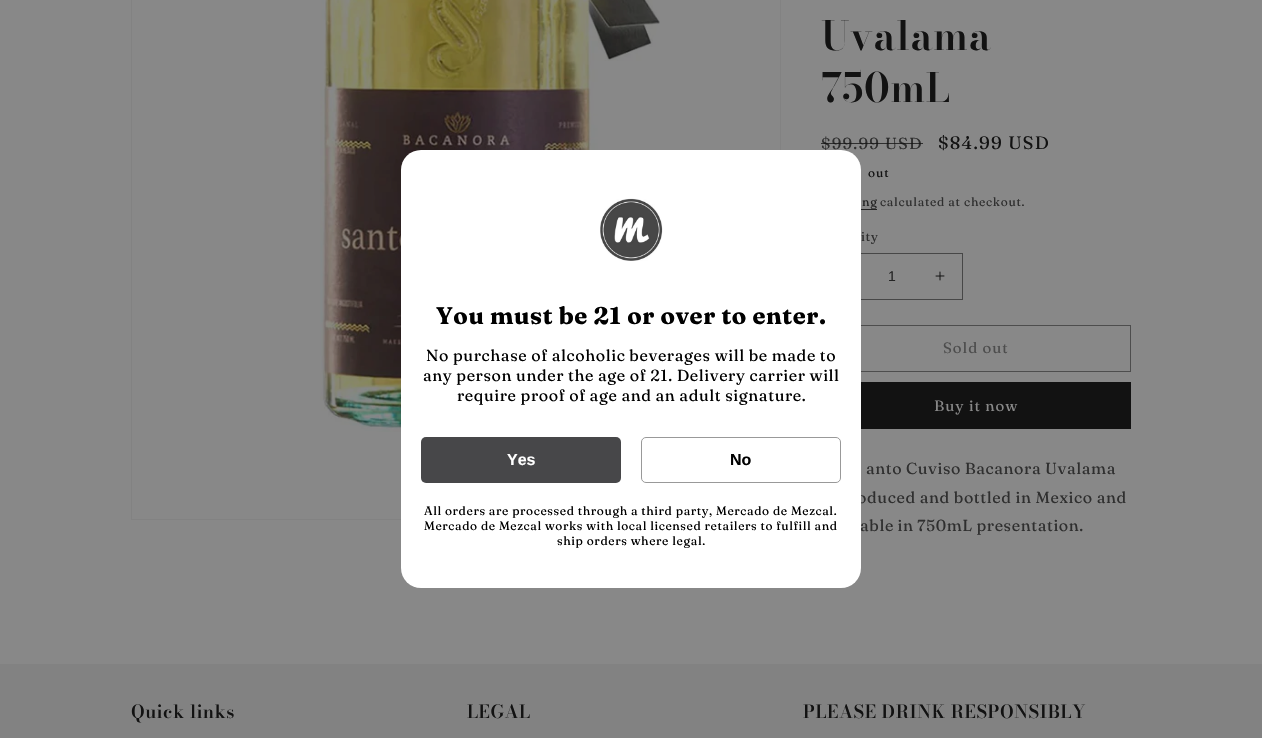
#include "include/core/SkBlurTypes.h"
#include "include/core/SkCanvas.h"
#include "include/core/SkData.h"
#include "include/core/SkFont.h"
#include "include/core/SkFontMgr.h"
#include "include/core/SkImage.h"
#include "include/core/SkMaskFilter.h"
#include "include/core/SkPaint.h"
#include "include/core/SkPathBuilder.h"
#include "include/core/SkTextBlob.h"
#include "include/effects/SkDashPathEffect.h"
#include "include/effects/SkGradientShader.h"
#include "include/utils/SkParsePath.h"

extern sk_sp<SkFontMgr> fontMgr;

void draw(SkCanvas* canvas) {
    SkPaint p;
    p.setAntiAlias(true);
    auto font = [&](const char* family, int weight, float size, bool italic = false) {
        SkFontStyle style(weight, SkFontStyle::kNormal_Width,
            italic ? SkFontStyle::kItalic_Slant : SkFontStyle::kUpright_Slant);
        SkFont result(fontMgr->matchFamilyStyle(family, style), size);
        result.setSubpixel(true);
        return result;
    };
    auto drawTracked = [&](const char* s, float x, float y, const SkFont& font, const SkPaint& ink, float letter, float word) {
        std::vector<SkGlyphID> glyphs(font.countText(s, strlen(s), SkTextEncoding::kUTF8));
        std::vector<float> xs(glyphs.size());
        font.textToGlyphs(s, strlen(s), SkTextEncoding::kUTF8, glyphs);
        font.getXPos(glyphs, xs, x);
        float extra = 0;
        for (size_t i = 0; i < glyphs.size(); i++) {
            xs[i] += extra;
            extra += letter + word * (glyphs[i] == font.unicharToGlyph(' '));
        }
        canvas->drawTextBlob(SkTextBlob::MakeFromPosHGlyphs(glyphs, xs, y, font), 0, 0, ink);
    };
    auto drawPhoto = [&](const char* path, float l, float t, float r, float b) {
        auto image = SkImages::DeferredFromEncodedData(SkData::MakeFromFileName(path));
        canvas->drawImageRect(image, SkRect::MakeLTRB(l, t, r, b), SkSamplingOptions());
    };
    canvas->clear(0xFF888888);
    p.setStyle(SkPaint::kStroke_Style);
    p.setStrokeWidth(1);
    p.setColor(0xFF828282);
    canvas->drawRect(SkRect::MakeLTRB(131.5f, -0.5f, 780.5f, 519.5f), p);
    drawPhoto("media/2.png", 320, 0, 660, 432);
    auto font1 = font("Fraunces", 400, 16);
    p.setStyle(SkPaint::kFill_Style);
    p.setColor(0xFF2F2F2F);
    drawTracked("$99.99 USD", 821, 149, font1, p, 1.25f, 0);
    drawPhoto("media/3.png", 935, 271, 945, 281);
    p.setStyle(SkPaint::kStroke_Style);
    p.setColor(0xFF474747);
    canvas->drawRect(SkRect::MakeLTRB(821.5f, 253.5f, 962.5f, 299.5f), p);
    p.setColor(0xFF4D4D4D);
    canvas->drawRect(SkRect::MakeLTRB(821.5f, 325.5f, 1130.5f, 371.5f), p);
    p.setStyle(SkPaint::kFill_Style);
    p.setColor(0xFF2F2F2F);
    drawTracked("oduced and bottled in Mexico and", 857, 503, font1, p, 0.6f, -0.25f);
    drawTracked("able in 750mL presentation.", 860, 531, font1, p, 0.6f, -0.5f);
    p.setColor(0xFFFFFFFF);
    canvas->drawRoundRect(SkRect::MakeLTRB(401, 150, 861, 588), 20, 20, p);
    drawPhoto("media/1.png", 600, 198, 663, 261);
    auto font2 = font("Fraunces", 700, 24);
    p.setColor(0xFF000000);
    drawTracked("You must be 21 or over to enter.", 436, 324, font2, p, 0.6f, 0);
    {
        const struct { const char* s; float x, y; } items[] = {
            {"No purchase of alcoholic beverages will be made to", 426, 361},
            {"any person under the age of 21. Delivery carrier will", 423, 381},
            {"require proof of age and an adult signature.", 457, 401},
        };
        for (auto [s, x, y] : items) {
            drawTracked(s, x, y, font1, p, 0.6f, -0.25f);
        }
    }
    p.setColor(0xFF474749);
    canvas->drawRoundRect(SkRect::MakeLTRB(421, 437, 621, 483), 5, 5, p);
    auto font3 = font("Liberation Sans", 700, 16);
    p.setColor(0xFFFFFFFF);
    canvas->drawString("Yes", 507, 465, font3, p);
    p.setStyle(SkPaint::kStroke_Style);
    p.setColor(0xFF999999);
    canvas->drawRoundRect(SkRect::MakeLTRB(641.5f, 437.5f, 840.5f, 482.5f), 4.5f, 4.5f, p);
    p.setStyle(SkPaint::kFill_Style);
    p.setColor(0xFF000000);
    canvas->drawString("No", 730, 465, font3, p);
    auto font4 = font("Fraunces", 400, 12);
    drawTracked("All orders are processed through a third party, Mercado de Mezcal.", 424, 515, font4, p, 0.6f, -0.1f);
    drawTracked("Mercado de Mezcal works with local licensed retailers to fulfill and", 424, 530, font4, p, 0.6f, -0.1f);
    drawTracked("ship orders where legal.", 557, 545, font4, p, 0.6f, 0);
    auto font5 = font("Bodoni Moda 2", 600, 40);
    p.setColor(0xFF121212);
    drawTracked("Uvalama", 821, 50, font5, p, 0.6f, 0);
    drawTracked("750mL", 821, 102, font5, p, 0.6f, 0);
    p.setColor(0xBF121212);
    canvas->drawRect(SkRect::MakeLTRB(821, 143, 923, 144), p);
    auto font6 = font("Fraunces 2", 400, 18);
    p.setColor(0xFF121212);
    drawTracked("$84.99 USD", 938, 149, font6, p, 1.25f, 0);
    drawTracked("out", 868, 177, font4, p, 1, 0);
    p.setColor(0xFF242424);
    drawTracked("ng", 862, 206, font4, p, 0.7f, 0);
    canvas->drawRect(SkRect::MakeLTRB(861, 209, 877, 210), p);
    p.setColor(0xFF2F2F2F);
    drawTracked("calculated at checkout.", 880, 206, font4, p, 0.7f, 0);
    auto font7 = font("Fraunces", 400, 13);
    drawTracked("ity", 861, 241, font7, p, 0.5f, 0);
    auto font8 = font("Liberation Sans", 400, 14);
    p.setColor(0xFF242424);
    canvas->drawString("1", 888, 281, font8, p);
    auto font9 = font("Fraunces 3", 400, 15);
    p.setColor(0xFF4D4D4D);
    drawTracked("Sold out", 943, 353, font9, p, 1, 0);
    p.setColor(0xFF121212);
    canvas->drawRect(SkRect::MakeLTRB(861, 382, 1131, 429), p);
    p.setColor(0xFF888888);
    drawTracked("Buy it now", 934, 411, font9, p, 1, 0);
    p.setColor(0xFF2F2F2F);
    drawTracked("anto Cuviso Bacanora Uvalama", 866, 474, font1, p, 0.6f, -0.5f);
    p.setColor(0xFF828282);
    canvas->drawRect(SkRect::MakeLTRB(0, 664, 1262, 738), p);
    auto font10 = font("Bodoni Moda", 600, 18);
    p.setColor(0xFF121212);
    {
        const struct { const char* s; float x, y; } items[] = {
            {"Quick links", 131, 718},
            {"LEGAL", 467, 718},
            {"PLEASE DRINK RESPONSIBLY", 803, 718},
        };
        for (auto [s, x, y] : items) {
            drawTracked(s, x, y, font10, p, 0.6f, 0);
        }
    }
}
